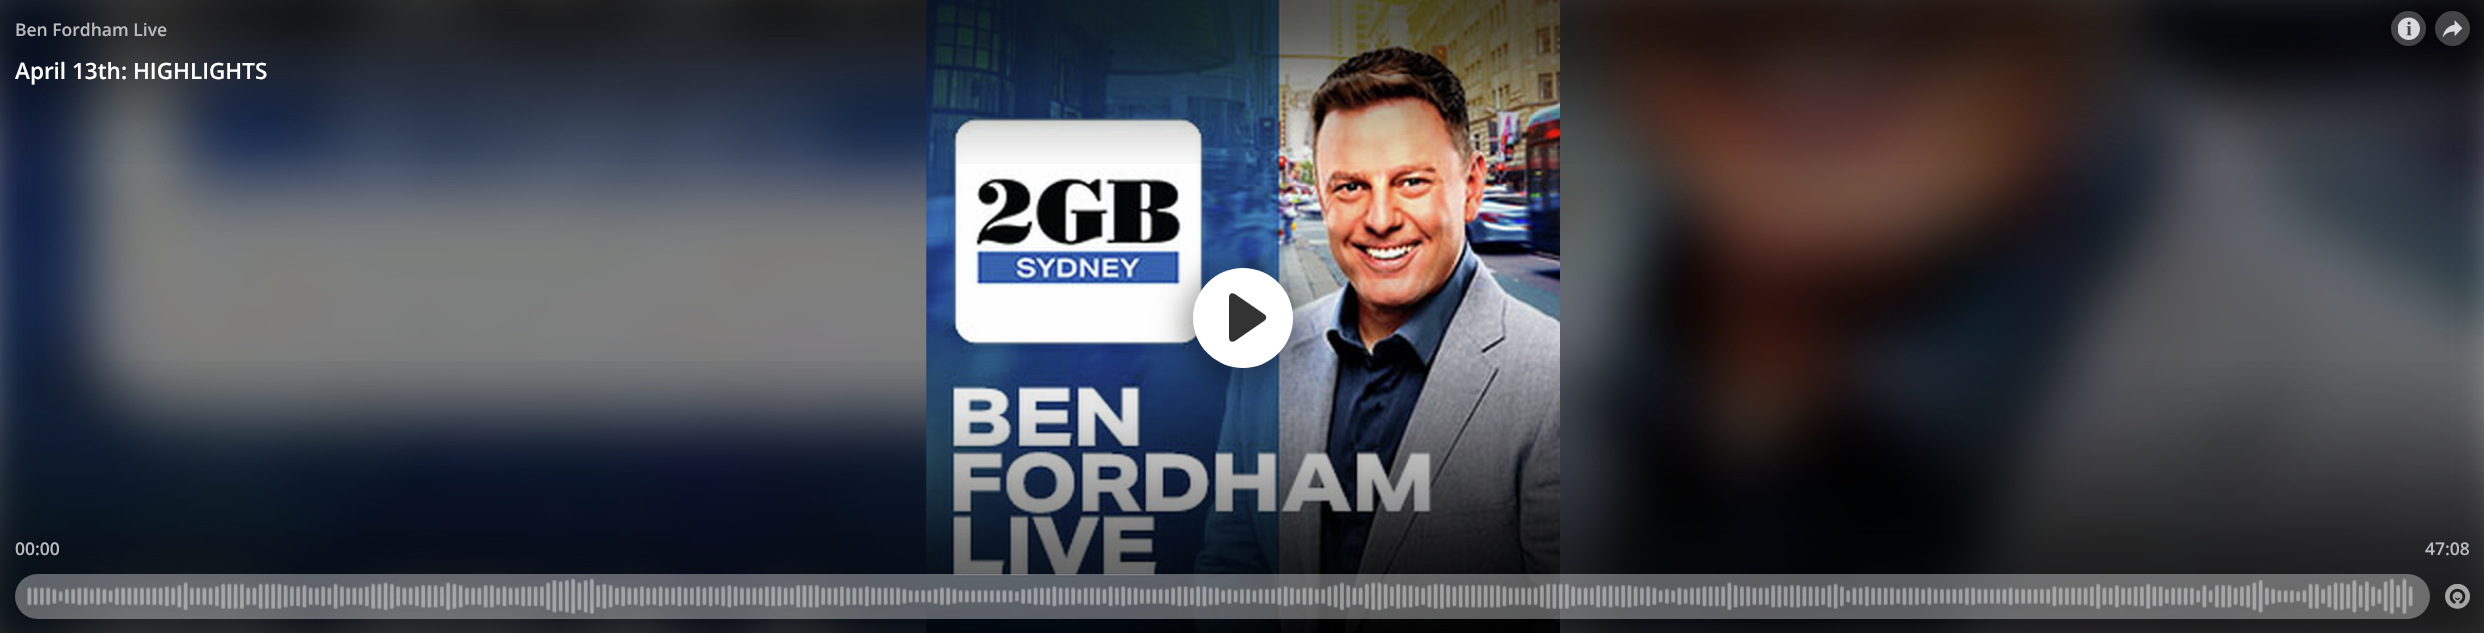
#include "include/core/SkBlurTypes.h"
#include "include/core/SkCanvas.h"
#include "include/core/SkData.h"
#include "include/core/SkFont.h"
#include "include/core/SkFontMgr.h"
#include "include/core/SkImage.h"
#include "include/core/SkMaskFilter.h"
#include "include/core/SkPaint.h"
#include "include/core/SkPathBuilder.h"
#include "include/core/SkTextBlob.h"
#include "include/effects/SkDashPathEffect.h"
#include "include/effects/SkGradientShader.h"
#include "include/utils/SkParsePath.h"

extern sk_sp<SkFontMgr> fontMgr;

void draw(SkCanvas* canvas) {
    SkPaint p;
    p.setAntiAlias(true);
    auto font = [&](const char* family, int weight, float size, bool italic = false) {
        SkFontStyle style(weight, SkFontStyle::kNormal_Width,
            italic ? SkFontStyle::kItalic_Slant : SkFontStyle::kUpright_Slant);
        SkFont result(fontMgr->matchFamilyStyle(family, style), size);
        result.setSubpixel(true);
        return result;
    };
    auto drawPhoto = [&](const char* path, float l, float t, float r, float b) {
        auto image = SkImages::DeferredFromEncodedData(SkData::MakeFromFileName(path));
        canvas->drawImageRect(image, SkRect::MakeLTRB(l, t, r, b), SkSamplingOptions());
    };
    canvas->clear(0xFFFFFFFF);
    drawPhoto("media/1.png", 0, 0, 2484, 633);
    drawPhoto("media/2.png", 926, 0, 1560, 633);
    {
        const SkColor colors[] = {0xA6000000, 0xA3000000, 0x9E000000, 0x94000000, 0x8A000000, 0x7A000000, 0x6B000000, 0x5C000000, 0x4A000000, 0x3B000000, 0x2B000000, 0x1C000000, 0x12000000, 0x08000000, 0x03000000, 0x00000000};
        const float stops[] = {0, 0.08f, 0.15f, 0.23f, 0.29f, 0.35f, 0.41f, 0.47f, 0.53f, 0.59f, 0.65f, 0.71f, 0.78f, 0.84f, 0.92f, 1};
        const SkPoint ends[] = {{1243, 0}, {1243, 188}};
        p.setShader(SkGradientShader::MakeLinear(ends, colors, stops, 16, SkTileMode::kClamp));
        p.setAlpha(255);
    }
    canvas->drawRect(SkRect::MakeLTRB(0, 0, 2484, 164), p);
    auto font1 = font("Open Sans", 600, 17.5f);
    p.setShader(nullptr);
    p.setColor(0xFFBABBBE);
    canvas->drawString("Ben Fordham Live", 15, 36, font1, p);
    p.setColor(0x3DFFFFFF);
    canvas->drawCircle(2408.5f, 28.5f, 17.5f, p);
    drawPhoto("media/3.png", 2398, 17, 2420, 40);
    canvas->drawCircle(2452.5f, 28.5f, 17.5f, p);
    drawPhoto("media/4.png", 2442, 20, 2463, 38);
    auto font2 = font("Open Sans", 600, 22.5f);
    p.setColor(0xFFFFFFFF);
    canvas->drawString("April 13th: HIGHLIGHTS", 15, 79, font2, p);
    {
        const SkColor colors[] = {0xA6000000, 0xA3000000, 0x9E000000, 0x94000000, 0x8A000000, 0x7A000000, 0x6B000000, 0x5C000000, 0x4A000000, 0x3B000000, 0x2B000000, 0x1C000000, 0x12000000, 0x08000000, 0x03000000, 0x00000000};
        const float stops[] = {0, 0.08f, 0.15f, 0.23f, 0.29f, 0.35f, 0.41f, 0.47f, 0.53f, 0.59f, 0.65f, 0.71f, 0.78f, 0.84f, 0.92f, 1};
        const SkPoint ends[] = {{1243, 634}, {1243, 321}};
        p.setShader(SkGradientShader::MakeLinear(ends, colors, stops, 16, SkTileMode::kClamp));
        p.setAlpha(255);
    }
    canvas->drawRect(SkRect::MakeLTRB(0, 361, 2484, 633), p);
    p.setShader(nullptr);
    p.setColor(0xFFBABBBE);
    canvas->drawString("00:00", 15, 555, font1, p);
    canvas->drawString("47:08", 2425, 555, font1, p);
    p.setColor(0x59FFFFFF);
    canvas->drawRoundRect(SkRect::MakeLTRB(15, 574, 2430, 619), 22.5f, 22.5f, p);
    drawPhoto("media/5.png", 27, 578, 1301, 614);
    drawPhoto("media/6.png", 1302, 578, 2413, 614);
    drawPhoto("media/7.png", 2445, 584, 2470, 609);
    p.setColor(0x66000000);
    p.setMaskFilter(SkMaskFilter::MakeBlur(kNormal_SkBlurStyle, 15));
    canvas->drawRoundRect(SkRect::MakeLTRB(1185, 269, 1300, 384), 57.5f, 57.5f, p);
    p.setMaskFilter(nullptr);
    p.setColor(0xFFFFFFFF);
    canvas->drawCircle(1243, 318, 50, p);
    p.setColor(0xFF333333);
    canvas->drawPath(SkPathBuilder().moveTo(1235, 341).cubicTo(1231, 343, 1229, 341, 1229, 337).lineTo(1229, 298).cubicTo(1229, 294, 1231, 292, 1235, 294).lineTo(1264, 314).cubicTo(1267, 316, 1267, 319, 1264, 321).close().detach(), p);
}
